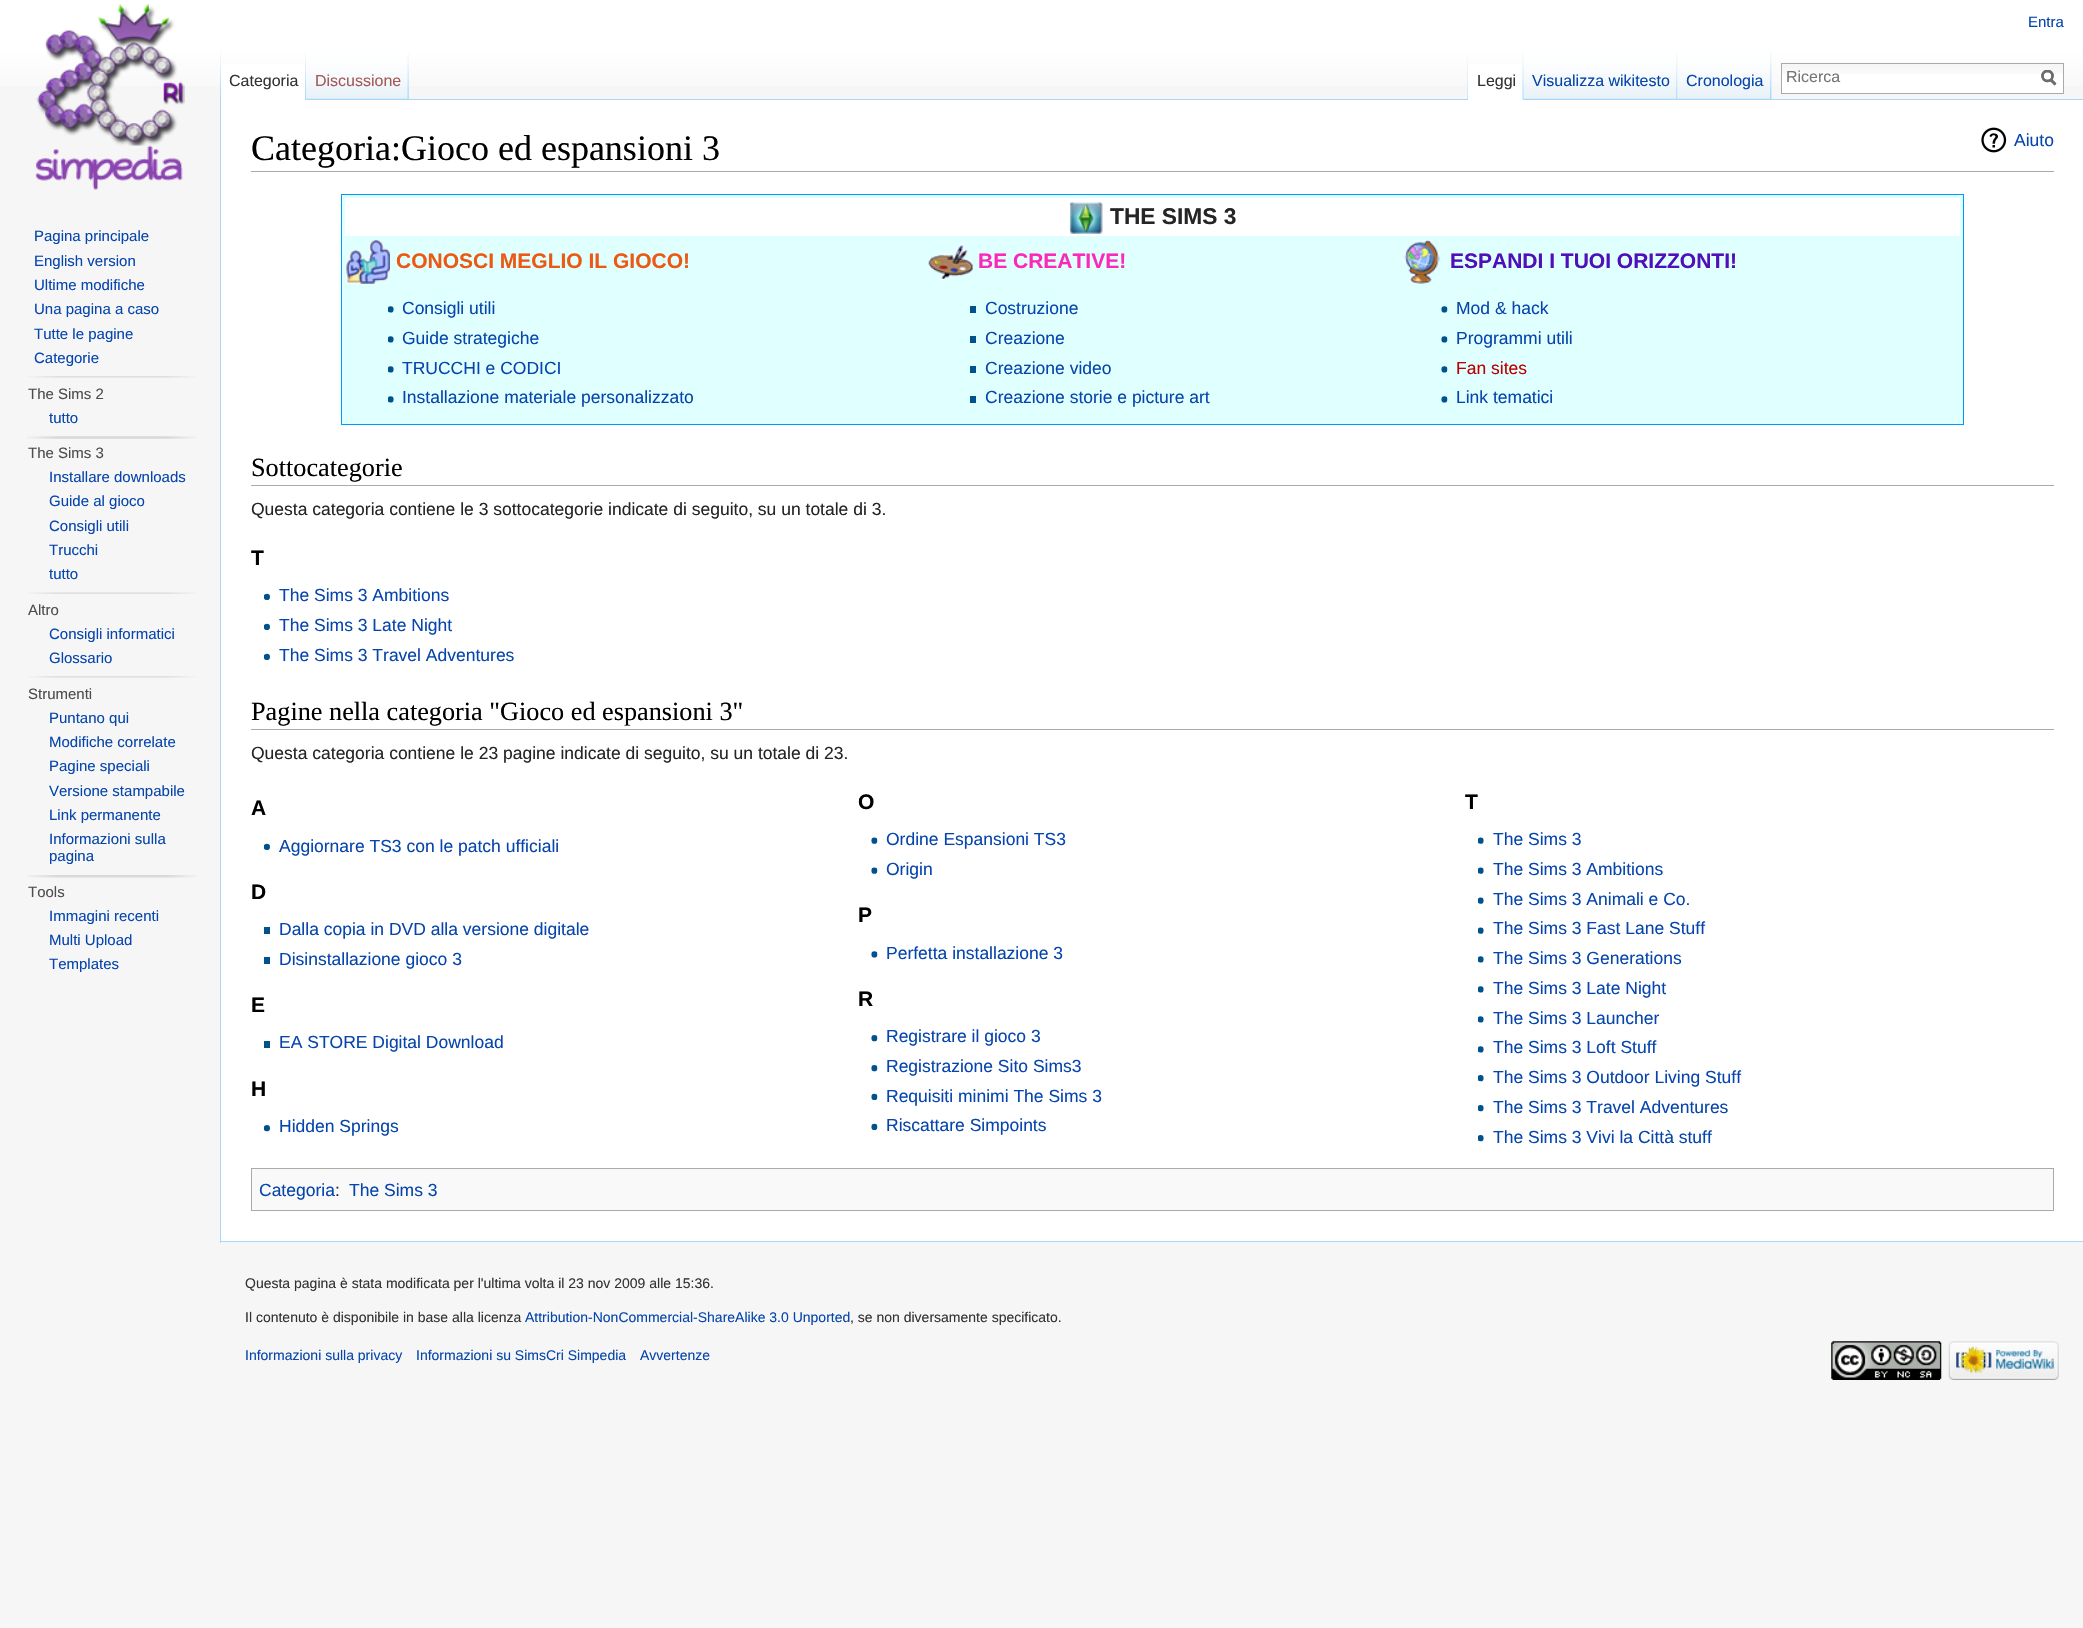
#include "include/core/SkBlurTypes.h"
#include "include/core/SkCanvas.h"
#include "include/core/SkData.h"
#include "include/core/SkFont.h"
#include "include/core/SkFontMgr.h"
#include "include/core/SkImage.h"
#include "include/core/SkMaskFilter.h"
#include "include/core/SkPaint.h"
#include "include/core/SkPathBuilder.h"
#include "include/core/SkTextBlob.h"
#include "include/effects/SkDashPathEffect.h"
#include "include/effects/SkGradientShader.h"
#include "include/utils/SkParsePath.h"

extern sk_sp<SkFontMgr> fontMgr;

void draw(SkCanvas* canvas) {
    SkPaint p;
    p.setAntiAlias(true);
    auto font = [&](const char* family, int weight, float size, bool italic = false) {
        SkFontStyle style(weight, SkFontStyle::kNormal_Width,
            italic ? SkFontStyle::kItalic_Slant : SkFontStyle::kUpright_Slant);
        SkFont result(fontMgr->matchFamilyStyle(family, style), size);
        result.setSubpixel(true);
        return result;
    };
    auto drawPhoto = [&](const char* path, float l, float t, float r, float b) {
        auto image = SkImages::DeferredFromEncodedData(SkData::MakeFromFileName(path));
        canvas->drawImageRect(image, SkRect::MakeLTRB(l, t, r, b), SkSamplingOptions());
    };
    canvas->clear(0xFFF6F6F6);
    {
        const SkColor colors[] = {0xFFFFFFFF, 0xFFF6F6F6};
        const float stops[] = {0.5f, 1};
        const SkPoint ends[] = {{1042, 0}, {1042, 100}};
        p.setShader(SkGradientShader::MakeLinear(ends, colors, stops, 2, SkTileMode::kClamp));
        p.setAlpha(255);
    }
    canvas->drawRect(SkRect::MakeLTRB(0, 0, 2083, 86), p);
    auto font1 = font("Liberation Sans", 400, 15);
    p.setShader(nullptr);
    p.setColor(0xFF0645AD);
    canvas->drawString("Entra", 2028, 27, font1, p);
    drawPhoto("media/1.png", 220, 50, 221, 99);
    drawPhoto("media/2.png", 408, 52, 409, 99);
    p.setColor(0xFFFFFFFF);
    canvas->drawRect(SkRect::MakeLTRB(221, 64, 307, 100), p);
    drawPhoto("media/3.png", 305, 50, 307, 100);
    auto font2 = font("Liberation Sans", 400, 16);
    p.setColor(0xFF333333);
    canvas->drawString("Categoria", 229, 86, font2, p);
    p.setColor(0xFFA7D7F9);
    canvas->drawRect(SkRect::MakeLTRB(408, 99, 2083, 100), p);
    drawPhoto("media/4.png", 306, 50, 409, 100);
    drawPhoto("media/5.png", 407, 53, 409, 100);
    p.setColor(0xFFA55858);
    canvas->drawString("Discussione", 315, 86, font2, p);
    drawPhoto("media/6.png", 1467, 52, 1468, 99);
    drawPhoto("media/7.png", 1771, 50, 1772, 99);
    p.setColor(0xFFFFFFFF);
    canvas->drawRect(SkRect::MakeLTRB(1468, 64, 1524, 100), p);
    drawPhoto("media/8.png", 1522, 52, 1524, 100);
    p.setColor(0xFF333333);
    canvas->drawString("Leggi", 1477, 86, font2, p);
    drawPhoto("media/9.png", 1523, 50, 1678, 100);
    drawPhoto("media/10.png", 1676, 52, 1678, 100);
    p.setColor(0xFF0645AD);
    canvas->drawString("Visualizza wikitesto", 1532, 86, font2, p);
    drawPhoto("media/11.png", 1677, 50, 1771, 100);
    drawPhoto("media/12.png", 1770, 50, 1772, 99);
    canvas->drawString("Cronologia", 1686, 86, font2, p);
    p.setColor(0xFFFFFFFF);
    canvas->drawRect(SkRect::MakeLTRB(1782, 74, 2063, 93), p);
    drawPhoto("media/13.png", 1782, 64, 2063, 74);
    p.setStyle(SkPaint::kStroke_Style);
    p.setStrokeWidth(1);
    p.setColor(0xFFAAAAAA);
    canvas->drawRect(SkRect::MakeLTRB(1781.5f, 63.5f, 2063.5f, 93.5f), p);
    p.setStyle(SkPaint::kFill_Style);
    p.setColor(0xFF757575);
    canvas->drawString("Ricerca", 1786, 82, font2, p);
    p.setStyle(SkPaint::kStroke_Style);
    p.setStrokeWidth(2.5f);
    p.setColor(0xFF6C6C6C);
    canvas->drawPath(SkPathBuilder().moveTo(2055.5f, 84.5f).lineTo(2050.5f, 79.5f).detach(), p);
    canvas->save();
    canvas->clipRect(SkRect::MakeLTRB(2041, 70, 2056, 86));
    canvas->drawCircle(2047.5f, 76, 5, p);
    canvas->restore();
    canvas->drawPath(SkPathBuilder().moveTo(2055.5f, 84.5f).lineTo(2050.5f, 79.5f).detach(), p);
    canvas->save();
    canvas->clipRect(SkRect::MakeLTRB(2041, 70, 2056, 86));
    canvas->drawCircle(2047.5f, 76, 5, p);
    canvas->restore();
    drawPhoto("media/14.png", 35, 3, 185, 190);
    p.setStyle(SkPaint::kFill_Style);
    p.setColor(0xFF0645AD);
    {
        const struct { const char* s; float x, y; } items[] = {
            {"Pagina principale", 34, 241},
            {"English version", 34, 266},
            {"Ultime modifiche", 34, 290},
            {"Una pagina a caso", 34, 314},
            {"Tutte le pagine", 34, 339},
            {"Categorie", 34, 363},
        };
        for (auto [s, x, y] : items) {
            canvas->drawString(s, x, y, font1, p);
        }
    }
    drawPhoto("media/15.png", 27, 376, 197, 378);
    p.setColor(0xFF4D4D4D);
    canvas->drawString("The Sims 2", 28, 399, font1, p);
    p.setColor(0xFF0645AD);
    canvas->drawString("tutto", 49, 423, font1, p);
    drawPhoto("media/16.png", 27, 436, 197, 439);
    p.setColor(0xFF4D4D4D);
    canvas->drawString("The Sims 3", 28, 458, font1, p);
    p.setColor(0xFF0645AD);
    {
        const struct { const char* s; float x, y; } items[] = {
            {"Installare downloads", 49, 482},
            {"Guide al gioco", 49, 506},
            {"Consigli utili", 49, 531},
            {"Trucchi", 49, 555},
            {"tutto", 49, 579},
        };
        for (auto [s, x, y] : items) {
            canvas->drawString(s, x, y, font1, p);
        }
    }
    drawPhoto("media/17.png", 27, 592, 197, 594);
    p.setColor(0xFF4D4D4D);
    canvas->drawString("Altro", 28, 615, font1, p);
    p.setColor(0xFF0645AD);
    canvas->drawString("Consigli informatici", 49, 639, font1, p);
    canvas->drawString("Glossario", 49, 663, font1, p);
    drawPhoto("media/15.png", 27, 676, 197, 678);
    p.setColor(0xFF4D4D4D);
    canvas->drawString("Strumenti", 28, 699, font1, p);
    p.setColor(0xFF0645AD);
    {
        const struct { const char* s; float x, y; } items[] = {
            {"Puntano qui", 49, 723},
            {"Modifiche correlate", 49, 747},
            {"Pagine speciali", 49, 771},
            {"Versione stampabile", 49, 796},
            {"Link permanente", 49, 820},
            {"Informazioni sulla", 49, 844},
            {"pagina", 49, 861},
        };
        for (auto [s, x, y] : items) {
            canvas->drawString(s, x, y, font1, p);
        }
    }
    drawPhoto("media/18.png", 27, 875, 197, 878);
    p.setColor(0xFF4D4D4D);
    canvas->drawString("Tools", 28, 897, font1, p);
    p.setColor(0xFF0645AD);
    {
        const struct { const char* s; float x, y; } items[] = {
            {"Immagini recenti", 49, 921},
            {"Multi Upload", 49, 945},
            {"Templates", 49, 969},
        };
        for (auto [s, x, y] : items) {
            canvas->drawString(s, x, y, font1, p);
        }
    }
    {
        const struct { float l, t, r, b; SkColor color; } items[] = {
            {221, 100, 2083, 1241, 0xFFFFFFFF},
            {220, 1241, 2083, 1242, 0xFFA7D7F9},
            {220, 99, 221, 1243, 0xFFA7D7F9},
            {251, 171, 2054, 172, 0xFFAAAAAA},
        };
        for (auto [l, t, r, b, color] : items) {
            p.setColor(color);
            canvas->drawRect(SkRect::MakeLTRB(l, t, r, b), p);
        }
    }
    auto font3 = font("Liberation Serif", 400, 36);
    p.setColor(0xFF000000);
    canvas->drawString("Categoria:Gioco ed espansioni 3", 251, 160, font3, p);
    drawPhoto("media/19.png", 1981, 127, 2007, 153);
    auto font4 = font("Liberation Sans", 400, 17.5f);
    p.setColor(0xFF0645AD);
    canvas->drawString("Aiuto", 2014, 146, font4, p);
    p.setColor(0xFFE0FFFF);
    canvas->drawRect(SkRect::MakeLTRB(341.5f, 194.5f, 1963.5f, 424.5f), p);
    p.setStyle(SkPaint::kStroke_Style);
    p.setStrokeWidth(1);
    p.setColor(0xFF0099FF);
    canvas->drawRect(SkRect::MakeLTRB(341.5f, 194.5f, 1963.5f, 424.5f), p);
    p.setStyle(SkPaint::kFill_Style);
    p.setColor(0xFFFFFFFF);
    canvas->drawRect(SkRect::MakeLTRB(345, 198, 1960, 236), p);
    drawPhoto("media/20.png", 1069, 202, 1103, 234);
    auto font5 = font("Liberation Sans", 700, 22.75f);
    p.setColor(0xFF252525);
    canvas->drawString("THE SIMS 3", 1110, 224, font5, p);
    drawPhoto("media/21.png", 346, 240, 390, 284);
    auto font6 = font("Liberation Sans", 700, 21);
    p.setColor(0xFFEB5912);
    canvas->drawString("CONOSCI MEGLIO IL GIOCO!", 396, 268, font6, p);
    drawPhoto("media/22.png", 928, 243, 973, 280);
    p.setColor(0xFFFC28B9);
    canvas->drawString("BE CREATIVE!", 978, 268, font6, p);
    drawPhoto("media/23.png", 1403, 240, 1441, 284);
    p.setColor(0xFF4F0FB9);
    canvas->drawString("ESPANDI I TUOI ORIZZONTI!", 1450, 268, font6, p);
    drawPhoto("media/24.png", 388, 306, 394, 313);
    p.setColor(0xFF0645AD);
    canvas->drawString("Consigli utili", 402, 314, font4, p);
    drawPhoto("media/24.png", 388, 336, 394, 343);
    canvas->drawString("Guide strategiche", 402, 344, font4, p);
    drawPhoto("media/24.png", 388, 366, 394, 373);
    canvas->drawString("TRUCCHI e CODICI", 402, 374, font4, p);
    drawPhoto("media/24.png", 388, 396, 394, 403);
    canvas->drawString("Installazione materiale personalizzato", 402, 403, font4, p);
    p.setColor(0xFF00528C);
    canvas->drawRect(SkRect::MakeLTRB(970, 306, 976, 313), p);
    p.setColor(0xFF0645AD);
    canvas->drawString("Costruzione", 985, 314, font4, p);
    p.setColor(0xFF00528C);
    canvas->drawRect(SkRect::MakeLTRB(970, 336, 976, 343), p);
    p.setColor(0xFF0645AD);
    canvas->drawString("Creazione", 985, 344, font4, p);
    p.setColor(0xFF00528C);
    canvas->drawRect(SkRect::MakeLTRB(970, 366, 976, 373), p);
    p.setColor(0xFF0645AD);
    canvas->drawString("Creazione video", 985, 374, font4, p);
    p.setColor(0xFF00528C);
    canvas->drawRect(SkRect::MakeLTRB(970, 396, 976, 403), p);
    p.setColor(0xFF0645AD);
    canvas->drawString("Creazione storie e picture art", 985, 403, font4, p);
    drawPhoto("media/25.png", 1441, 306, 1448, 313);
    canvas->drawString("Mod & hack", 1456, 314, font4, p);
    drawPhoto("media/25.png", 1441, 336, 1448, 343);
    canvas->drawString("Programmi utili", 1456, 344, font4, p);
    drawPhoto("media/25.png", 1441, 366, 1448, 373);
    p.setColor(0xFFBA0000);
    canvas->drawString("Fan sites", 1456, 374, font4, p);
    drawPhoto("media/25.png", 1441, 396, 1448, 403);
    p.setColor(0xFF0645AD);
    canvas->drawString("Link tematici", 1456, 403, font4, p);
    p.setColor(0xFFAAAAAA);
    canvas->drawRect(SkRect::MakeLTRB(251, 485, 2054, 486), p);
    auto font7 = font("Liberation Serif", 400, 26.25f);
    p.setColor(0xFF000000);
    canvas->drawString("Sottocategorie", 251, 476, font7, p);
    p.setColor(0xFF252525);
    canvas->drawString("Questa categoria contiene le 3 sottocategorie indicate di seguito, su un totale di 3.", 251, 515, font4, p);
    p.setColor(0xFF000000);
    canvas->drawString("T", 251, 565, font6, p);
    drawPhoto("media/26.png", 264, 593, 270, 600);
    p.setColor(0xFF0645AD);
    canvas->drawString("The Sims 3 Ambitions", 279, 601, font4, p);
    drawPhoto("media/26.png", 264, 623, 270, 630);
    canvas->drawString("The Sims 3 Late Night", 279, 631, font4, p);
    drawPhoto("media/26.png", 264, 653, 270, 660);
    canvas->drawString("The Sims 3 Travel Adventures", 279, 661, font4, p);
    p.setColor(0xFFAAAAAA);
    canvas->drawRect(SkRect::MakeLTRB(251, 729, 2054, 730), p);
    p.setColor(0xFF000000);
    canvas->drawString("Pagine nella categoria \"Gioco ed espansioni 3\"", 251, 720, font7, p);
    p.setColor(0xFF252525);
    canvas->drawString("Questa categoria contiene le 23 pagine indicate di seguito, su un totale di 23.", 251, 759, font4, p);
    p.setColor(0xFF000000);
    canvas->drawString("A", 251, 815, font6, p);
    drawPhoto("media/26.png", 264, 843, 270, 850);
    p.setColor(0xFF0645AD);
    canvas->drawString("Aggiornare TS3 con le patch ufficiali", 279, 852, font4, p);
    p.setColor(0xFF000000);
    canvas->drawString("O", 858, 809, font6, p);
    drawPhoto("media/27.png", 871, 837, 878, 844);
    p.setColor(0xFF0645AD);
    canvas->drawString("Ordine Espansioni TS3", 886, 845, font4, p);
    drawPhoto("media/27.png", 871, 867, 878, 874);
    canvas->drawString("Origin", 886, 875, font4, p);
    canvas->save();
    canvas->clipRect(SkRect::MakeLTRB(1465, 776, 2054, 820));
    p.setColor(0xFF000000);
    canvas->drawString("T", 1465, 809, font6, p);
    canvas->restore();
    drawPhoto("media/28.png", 1478, 837, 1484, 844);
    p.setColor(0xFF0645AD);
    canvas->drawString("The Sims 3", 1493, 845, font4, p);
    drawPhoto("media/28.png", 1478, 867, 1484, 874);
    canvas->drawString("The Sims 3 Ambitions", 1493, 875, font4, p);
    drawPhoto("media/28.png", 1478, 897, 1484, 904);
    canvas->drawString("The Sims 3 Animali e Co.", 1493, 905, font4, p);
    drawPhoto("media/28.png", 1478, 927, 1484, 934);
    canvas->drawString("The Sims 3 Fast Lane Stuff", 1493, 934, font4, p);
    drawPhoto("media/29.png", 1478, 956, 1484, 963);
    canvas->drawString("The Sims 3 Generations", 1493, 964, font4, p);
    drawPhoto("media/29.png", 1478, 986, 1484, 993);
    canvas->drawString("The Sims 3 Late Night", 1493, 994, font4, p);
    drawPhoto("media/30.png", 1478, 1016, 1484, 1023);
    canvas->drawString("The Sims 3 Launcher", 1493, 1024, font4, p);
    drawPhoto("media/29.png", 1478, 1046, 1484, 1053);
    canvas->drawString("The Sims 3 Loft Stuff", 1493, 1053, font4, p);
    drawPhoto("media/31.png", 1478, 1075, 1484, 1082);
    canvas->drawString("The Sims 3 Outdoor Living Stuff", 1493, 1083, font4, p);
    drawPhoto("media/31.png", 1478, 1105, 1484, 1112);
    canvas->drawString("The Sims 3 Travel Adventures", 1493, 1113, font4, p);
    drawPhoto("media/31.png", 1478, 1135, 1484, 1142);
    canvas->drawString("The Sims 3 Vivi la Città stuff", 1493, 1143, font4, p);
    p.setColor(0xFF000000);
    canvas->drawString("D", 251, 899, font6, p);
    p.setColor(0xFF00528C);
    canvas->drawRect(SkRect::MakeLTRB(264, 927, 270, 934), p);
    p.setColor(0xFF0645AD);
    canvas->drawString("Dalla copia in DVD alla versione digitale", 279, 935, font4, p);
    p.setColor(0xFF00528C);
    canvas->drawRect(SkRect::MakeLTRB(264, 957, 270, 964), p);
    p.setColor(0xFF0645AD);
    canvas->drawString("Disinstallazione gioco 3", 279, 965, font4, p);
    p.setColor(0xFF000000);
    canvas->drawString("P", 858, 922, font6, p);
    drawPhoto("media/32.png", 871, 951, 878, 958);
    p.setColor(0xFF0645AD);
    canvas->drawString("Perfetta installazione 3", 886, 959, font4, p);
    p.setColor(0xFF000000);
    canvas->drawString("E", 251, 1012, font6, p);
    p.setColor(0xFF00528C);
    canvas->drawRect(SkRect::MakeLTRB(264, 1041, 270, 1048), p);
    p.setColor(0xFF0645AD);
    canvas->drawString("EA STORE Digital Download", 279, 1048, font4, p);
    p.setColor(0xFF000000);
    canvas->drawString("R", 858, 1006, font6, p);
    drawPhoto("media/33.png", 871, 1035, 878, 1042);
    p.setColor(0xFF0645AD);
    canvas->drawString("Registrare il gioco 3", 886, 1042, font4, p);
    drawPhoto("media/33.png", 871, 1065, 878, 1072);
    canvas->drawString("Registrazione Sito Sims3", 886, 1072, font4, p);
    drawPhoto("media/34.png", 871, 1093, 878, 1100);
    canvas->drawString("Requisiti minimi The Sims 3", 886, 1102, font4, p);
    drawPhoto("media/34.png", 871, 1123, 878, 1130);
    canvas->drawString("Riscattare Simpoints", 886, 1131, font4, p);
    p.setColor(0xFF000000);
    canvas->drawString("H", 251, 1096, font6, p);
    drawPhoto("media/35.png", 264, 1125, 270, 1132);
    p.setColor(0xFF0645AD);
    canvas->drawString("Hidden Springs", 279, 1132, font4, p);
    p.setColor(0xFFF9F9F9);
    canvas->drawRect(SkRect::MakeLTRB(251.5f, 1168.5f, 2053.5f, 1210.5f), p);
    p.setStyle(SkPaint::kStroke_Style);
    p.setColor(0xFFAAAAAA);
    canvas->drawRect(SkRect::MakeLTRB(251.5f, 1168.5f, 2053.5f, 1210.5f), p);
    p.setStyle(SkPaint::kFill_Style);
    p.setColor(0xFF0645AD);
    canvas->drawString("Categoria", 259, 1196, font4, p);
    p.setColor(0xFF252525);
    canvas->drawString(":", 335, 1196, font4, p);
    p.setColor(0xFF0645AD);
    canvas->drawString("The Sims 3", 349, 1196, font4, p);
    auto font8 = font("Liberation Sans", 400, 14);
    p.setColor(0xFF333333);
    canvas->drawString("Questa pagina è stata modificata per l'ultima volta il 23 nov 2009 alle 15:36.", 245, 1288, font8, p);
    canvas->drawString("Il contenuto è disponibile in base alla licenza", 245, 1322, font8, p);
    p.setColor(0xFF0645AD);
    canvas->drawString("Attribution-NonCommercial-ShareAlike 3.0 Unported", 525, 1322, font8, p);
    p.setColor(0xFF333333);
    canvas->drawString(", se non diversamente specificato.", 850, 1322, font8, p);
    p.setColor(0xFF0645AD);
    {
        const struct { const char* s; float x, y; } items[] = {
            {"Informazioni sulla privacy", 245, 1360},
            {"Informazioni su SimsCri Simpedia", 416, 1360},
            {"Avvertenze", 640, 1360},
        };
        for (auto [s, x, y] : items) {
            canvas->drawString(s, x, y, font8, p);
        }
    }
    drawPhoto("media/36.png", 1831, 1341, 1942, 1380);
    drawPhoto("media/37.png", 1948, 1341, 2059, 1380);
}
